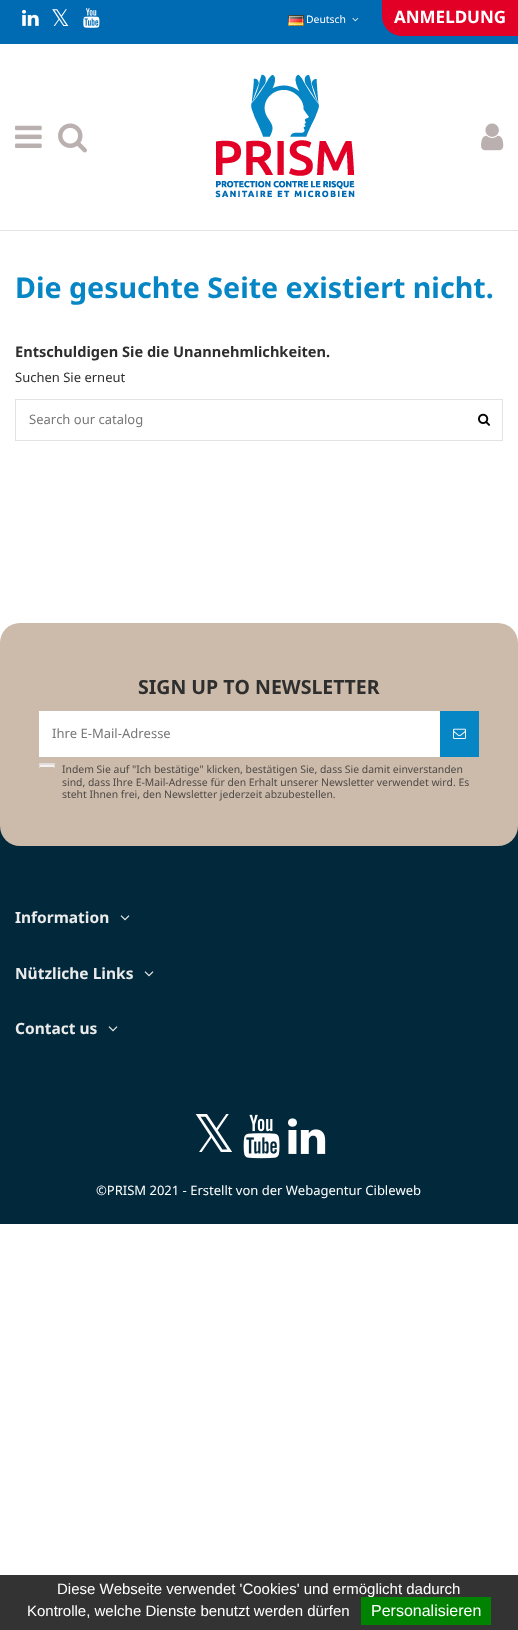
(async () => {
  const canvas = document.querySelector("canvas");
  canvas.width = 518;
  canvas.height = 1630;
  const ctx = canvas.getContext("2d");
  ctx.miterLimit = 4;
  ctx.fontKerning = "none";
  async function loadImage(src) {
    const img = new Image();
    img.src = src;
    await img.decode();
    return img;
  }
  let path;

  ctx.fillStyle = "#ffffff";
  ctx.fillRect(0, 0, 518, 1630);
  ctx.fillStyle = "#006ab3";
  ctx.fillRect(0, 0, 518, 44);
  ctx.drawImage(await loadImage("img/1.png"), 22, 9, 17, 17);
  ctx.drawImage(await loadImage("img/2.png"), 83, 8, 17, 20);
  ctx.drawImage(await loadImage("img/3.png"), 288, 15, 16, 11);
  ctx.drawImage(await loadImage("img/4.png"), 352, 17, 7, 5);
  ctx.fillStyle = "#e20026";
  path = new Path2D("M382-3H518V36H402C391 36 382 27 382 16Z");
  ctx.fill(path);
  ctx.fillStyle = "#e3e3e3";
  ctx.fillRect(0, 230, 518, 1);
  ctx.drawImage(await loadImage("img/5.png"), 15, 125, 27, 23);
  ctx.drawImage(await loadImage("img/6.png"), 58, 123, 29, 30);
  ctx.drawImage(await loadImage("img/7.png"), 215, 74, 140, 124);
  ctx.drawImage(await loadImage("img/8.png"), 481, 123, 23, 28);
  ctx.strokeStyle = "#e3e3e3";
  ctx.strokeRect(15.5, 399.5, 487, 41);
  ctx.drawImage(await loadImage("img/9.png"), 478, 413, 12, 13);
  ctx.fillStyle = "#02283b";
  ctx.fillRect(0, 992, 518, 232);
  path = new Path2D("M127 772H391C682 772 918 812 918 861V906C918 955 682 995 391 995H127C-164 995-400 955-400 906V861C-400 812-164 772 127 772Z");
  ctx.fill(path);
  ctx.fillStyle = "#ccbaaa";
  ctx.beginPath();
  ctx.roundRect(0, 623, 518, 223, 20);
  ctx.fill();
  ctx.fillStyle = "#ffffff";
  ctx.fillRect(39, 711, 401, 46);
  ctx.fillStyle = "#0786c5";
  ctx.fillRect(440, 711, 39, 46);
  ctx.drawImage(await loadImage("img/10.png"), 453, 728, 13, 11);
  ctx.fillStyle = "#f5f1ee";
  ctx.fillRect(40, 765, 14, 3);
  ctx.fillStyle = "#e3dfdc";
  ctx.fillRect(40, 764, 14, 1);
  ctx.strokeStyle = "#dedbd8";
  ctx.strokeRect(39.5, 763.5, 15, 15);
  ctx.fillStyle = "#ccbaaa";
  ctx.beginPath();
  ctx.roundRect(39.5, 767.5, 15, 15, 1.5);
  ctx.fill();
  ctx.strokeStyle = "#ccbaaa";
  ctx.stroke();
  ctx.drawImage(await loadImage("img/11.png"), 120, 915, 10, 6);
  ctx.drawImage(await loadImage("img/11.png"), 144, 971, 10, 6);
  ctx.drawImage(await loadImage("img/11.png"), 108, 1026, 10, 6);
  ctx.drawImage(await loadImage("img/12.png"), 243, 1114, 37, 45);
  ctx.drawImage(await loadImage("img/13.png"), 288, 1118, 38, 36);
  ctx.fillStyle = "#333333";
  ctx.fillRect(0, 1575, 518, 55);
  ctx.font = "23px DejaVu Sans";
  ctx.fillStyle = "#ffffff";
  ctx.fillText("𝕏", 51, 26);
  ctx.font = "10.4px Noto Sans";
  ctx.fillText("Deutsch", 306, 23);
  ctx.font = "bold 17px Noto Sans";
  ctx.fillText("ANMELDUNG", 394, 23);
  ctx.font = "bold 28.6px Noto Sans";
  ctx.fillStyle = "#0786c5";
  ctx.fillText("Die gesuchte Seite existiert nicht.", 15, 298);
  ctx.font = "bold 14.6px Noto Sans";
  ctx.fillStyle = "#2e2e2e";
  ctx.fillText("Entschuldigen Sie die Unannehmlichkeiten.", 15, 357);
  ctx.font = "13px Noto Sans";
  ctx.fillText("Suchen Sie erneut", 15, 382);
  ctx.fillStyle = "#777777";
  ctx.fillText("Search our catalog", 29, 424);
  ctx.font = "bold 19.5px Noto Sans";
  ctx.fillStyle = "#2e2e2e";
  ctx.fillText("SIGN UP TO NEWSLETTER", 138, 694);
  ctx.font = "13px Noto Sans";
  ctx.fillStyle = "#777777";
  ctx.fillText("Ihre E-Mail-Adresse", 52, 738);
  ctx.font = "10.4px Noto Sans";
  ctx.fillStyle = "#4e4a47";
  for (const [text, x, y] of [
    ["Indem Sie auf \"Ich bestätige\" klicken, bestätigen Sie, dass Sie damit einverstanden", 62, 773],
    ["sind, dass Ihre E-Mail-Adresse für den Erhalt unserer Newsletter verwendet wird. Es", 62, 786],
    ["steht Ihnen frei, den Newsletter jederzeit abzubestellen.", 62, 798],
  ]) {
    ctx.fillText(text, x, y);
  }
  ctx.font = "bold 15.5px Noto Sans";
  ctx.fillStyle = "#ebebeb";
  for (const [text, x, y] of [
    ["Information", 15, 923],
    ["Nützliche Links", 15, 979],
    ["Contact us", 15, 1034],
  ]) {
    ctx.fillText(text, x, y);
  }
  ctx.font = "52px DejaVu Sans";
  ctx.fillStyle = "#ffffff";
  ctx.fillText("𝕏", 193, 1152);
  ctx.font = "13px Noto Sans";
  ctx.fillText("©PRISM 2021 - Erstellt von der Webagentur Cibleweb", 96, 1195);
  ctx.font = "15px Liberation Sans";
  ctx.fillText("Diese Webseite verwendet 'Cookies' und ermöglicht dadurch", 57, 1594);
  ctx.fillText("Kontrolle, welche Dienste benutzt werden dürfen", 27, 1616);
  ctx.fillStyle = "#008300";
  ctx.fillRect(361, 1597, 130, 28);
  ctx.font = "16px Liberation Sans";
  ctx.fillStyle = "#ffffff";
  ctx.fillText("Personalisieren", 371, 1616);
})();
